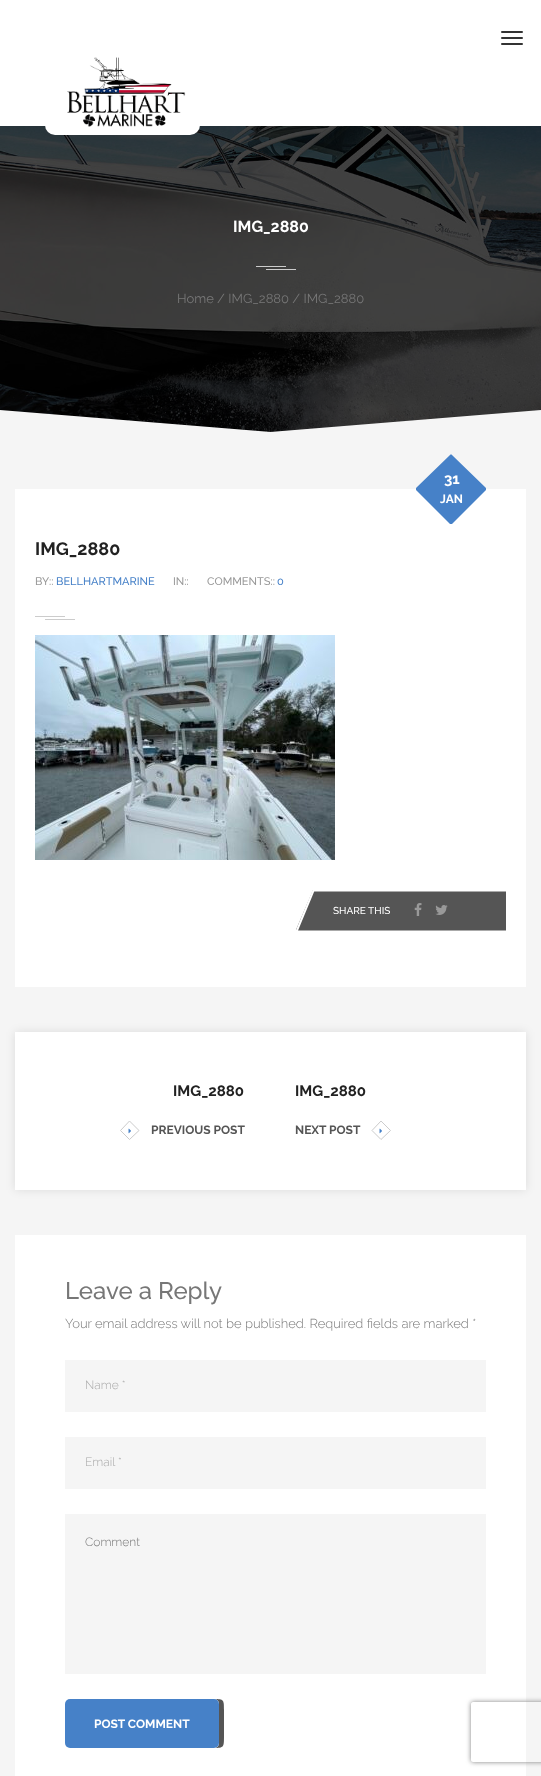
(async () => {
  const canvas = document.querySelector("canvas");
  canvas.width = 541;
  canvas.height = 1776;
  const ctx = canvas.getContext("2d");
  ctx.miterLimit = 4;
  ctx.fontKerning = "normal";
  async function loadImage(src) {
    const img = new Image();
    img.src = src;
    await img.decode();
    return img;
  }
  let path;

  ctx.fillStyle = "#f5f5f5";
  ctx.fillRect(0, 0, 541, 1776);
  ctx.fillStyle = "#ffffff";
  ctx.fillRect(0, 0, 541, 126);
  ctx.fillStyle = "#333333";
  ctx.beginPath();
  ctx.roundRect(501, 31, 11, 2, [1, 0, 0, 1]);
  ctx.fill();
  ctx.beginPath();
  ctx.roundRect(512, 31, 11, 2, [0, 1, 1, 0]);
  ctx.fill();
  ctx.beginPath();
  ctx.roundRect(501, 37, 11, 2, [1, 0, 0, 1]);
  ctx.fill();
  ctx.beginPath();
  ctx.roundRect(512, 37, 11, 2, [0, 1, 1, 0]);
  ctx.fill();
  ctx.beginPath();
  ctx.roundRect(501, 43, 11, 2, [1, 0, 0, 1]);
  ctx.fill();
  ctx.beginPath();
  ctx.roundRect(512, 43, 11, 2, [0, 1, 1, 0]);
  ctx.fill();
  ctx.drawImage(await loadImage("img/2.png"), 0, 126, 541, 306);
  ctx.fillStyle = "#ffffff";
  ctx.beginPath();
  ctx.roundRect(45, 50, 155, 85, 10);
  ctx.fill();
  ctx.drawImage(await loadImage("img/1.png"), 67, 57, 119, 70);
  ctx.fillStyle = "#cccccc";
  ctx.fillRect(256, 266, 30, 1);
  ctx.fillRect(266, 269, 30, 1);
  ctx.save();
  ctx.beginPath();
  ctx.rect(0, 0, 541, 448);
  ctx.clip();
  ctx.fillStyle = "#f5f5f5";
  path = new Path2D("M0 410L271 432V475L0 454Z");
  ctx.fill(path);
  path = new Path2D("M270 432L541 410V454L270 475Z");
  ctx.fill(path);
  ctx.restore();
  ctx.fillStyle = "#ffffff";
  ctx.fillRect(15, 489, 511, 498);
  ctx.fillStyle = "#4681c8";
  path = new Path2D("M452 455L486 488C486 489 486 489 486 490L452 524C451 524 451 524 450 524L416 490C416 489 416 489 416 488L450 455C451 454 451 454 452 455Z");
  ctx.fill(path);
  ctx.fillStyle = "#cccccc";
  ctx.fillRect(35, 616, 30, 1);
  ctx.fillRect(45, 619, 30, 1);
  ctx.drawImage(await loadImage("img/3.png"), 35, 635, 300, 225);
  ctx.save();
  ctx.beginPath();
  ctx.rect(296, 890, 210, 42);
  ctx.clip();
  ctx.fillStyle = "#555555";
  path = new Path2D("M313 890H528L510 932H295Z");
  ctx.fill(path);
  path = new Path2D("M313.5 890.5H526.5L509.5 931.5H296.5Z");
  ctx.strokeStyle = "#ffffff";
  ctx.lineWidth = 2;
  ctx.stroke(path);
  ctx.restore();
  ctx.drawImage(await loadImage("img/4.png"), 414, 903, 8, 13);
  ctx.drawImage(await loadImage("img/5.png"), 435, 905, 13, 10);
  ctx.fillStyle = "rgba(0, 0, 0, 0.1)";
  ctx.filter = "blur(5px)";
  ctx.beginPath();
  ctx.rect(15, 1032, 511, 158);
  ctx.fill();
  ctx.filter = "none";
  ctx.fillStyle = "#ffffff";
  ctx.fillRect(15, 1032, 511, 158);
  path = new Path2D("M129.5 1121L139 1130.5L129.5 1139.5L120.5 1130.5Z");
  ctx.strokeStyle = "#cccccc";
  ctx.stroke(path);
  ctx.drawImage(await loadImage("img/6.png"), 128, 1128, 3, 6);
  path = new Path2D("M381 1121L390.5 1130.5L381 1139.5L372 1130.5Z");
  ctx.stroke(path);
  ctx.drawImage(await loadImage("img/6.png"), 379, 1128, 3, 6);
  for (const [x, y, w, h, color] of [
    [15, 1235, 511, 541, "#ffffff"],
    [65, 1360, 421, 52, "#f5f5f5"],
    [65, 1437, 421, 52, "#f5f5f5"],
    [65, 1514, 421, 160, "#f5f5f5"],
  ]) {
    ctx.fillStyle = color;
    ctx.fillRect(x, y, w, h);
  }
  ctx.fillStyle = "#555555";
  path = new Path2D("M214 1748C224 1748 224 1747 224 1736V1710C224 1700 224 1699 214 1699C217 1699 219 1701 219 1704V1743C219 1746 217 1748 214 1748Z");
  ctx.fill(path);
  ctx.fillStyle = "#4681c8";
  ctx.beginPath();
  ctx.roundRect(65, 1699, 154, 49, 5);
  ctx.fill();
  ctx.save();
  path = new Path2D("M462 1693H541V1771H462ZM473 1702H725C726 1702 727 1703 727 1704V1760C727 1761 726 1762 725 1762H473C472 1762 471 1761 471 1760V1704C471 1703 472 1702 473 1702Z");
  ctx.clip(path, "evenodd");
  ctx.fillStyle = "#808080";
  ctx.filter = "blur(2.5px)";
  ctx.beginPath();
  ctx.roundRect(471, 1702, 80, 60, 2);
  ctx.fill();
  ctx.filter = "none";
  ctx.restore();
  ctx.font = "bold 16px Raleway";
  ctx.fillStyle = "#ffffff";
  ctx.fillText("IMG_2880", 233, 232);
  ctx.font = "13px Raleway";
  ctx.fillStyle = "#777777";
  ctx.fillText("Home / IMG_2880 / IMG_2880", 177, 303);
  ctx.font = "bold 15px Raleway";
  ctx.fillStyle = "#ffffff";
  ctx.fillText("31", 444, 484);
  ctx.font = "bold 12px Raleway";
  ctx.fillText("JAN", 440, 503);
  ctx.font = "bold 18px Raleway";
  ctx.fillStyle = "#222222";
  ctx.fillText("IMG_2880", 35, 555);
  ctx.font = "500 11px Raleway";
  ctx.fillStyle = "#999999";
  ctx.fillText("BY::", 35, 585);
  ctx.fillStyle = "#4681c8";
  ctx.fillText("BELLHARTMARINE", 56, 585);
  ctx.fillStyle = "#999999";
  ctx.fillText("IN::", 173, 585);
  ctx.fillText("COMMENTS::", 207, 585);
  ctx.fillStyle = "#4681c8";
  ctx.fillText("0", 277, 585);
  ctx.font = "500 10px Raleway";
  ctx.fillStyle = "#ffffff";
  ctx.fillText("SHARE THIS", 333, 914);
  ctx.font = "bold 15px Raleway";
  ctx.fillStyle = "#222222";
  ctx.fillText("IMG_2880", 173, 1096);
  ctx.font = "bold 12px Raleway";
  ctx.fillStyle = "#555555";
  ctx.fillText("PREVIOUS POST", 151, 1134);
  ctx.font = "bold 15px Raleway";
  ctx.fillStyle = "#222222";
  ctx.fillText("IMG_2880", 295, 1096);
  ctx.font = "bold 12px Raleway";
  ctx.fillStyle = "#555555";
  ctx.fillText("NEXT POST", 295, 1134);
  ctx.font = "500 24px Raleway";
  ctx.fillStyle = "#777777";
  ctx.fillText("Leave a Reply", 65, 1299);
  ctx.font = "300 13px Raleway";
  ctx.fillText("Your email address will not be published. Required fields are marked *", 65, 1328);
  ctx.font = "300 12px Raleway";
  ctx.fillStyle = "#aaaaaa";
  ctx.fillText("Name *", 85, 1389);
  ctx.fillText("Email *", 85, 1466);
  ctx.fillStyle = "#777777";
  ctx.fillText("Comment", 85, 1546);
  ctx.font = "bold 12px Raleway";
  ctx.fillStyle = "#ffffff";
  ctx.fillText("POST COMMENT", 94, 1728);
})();
